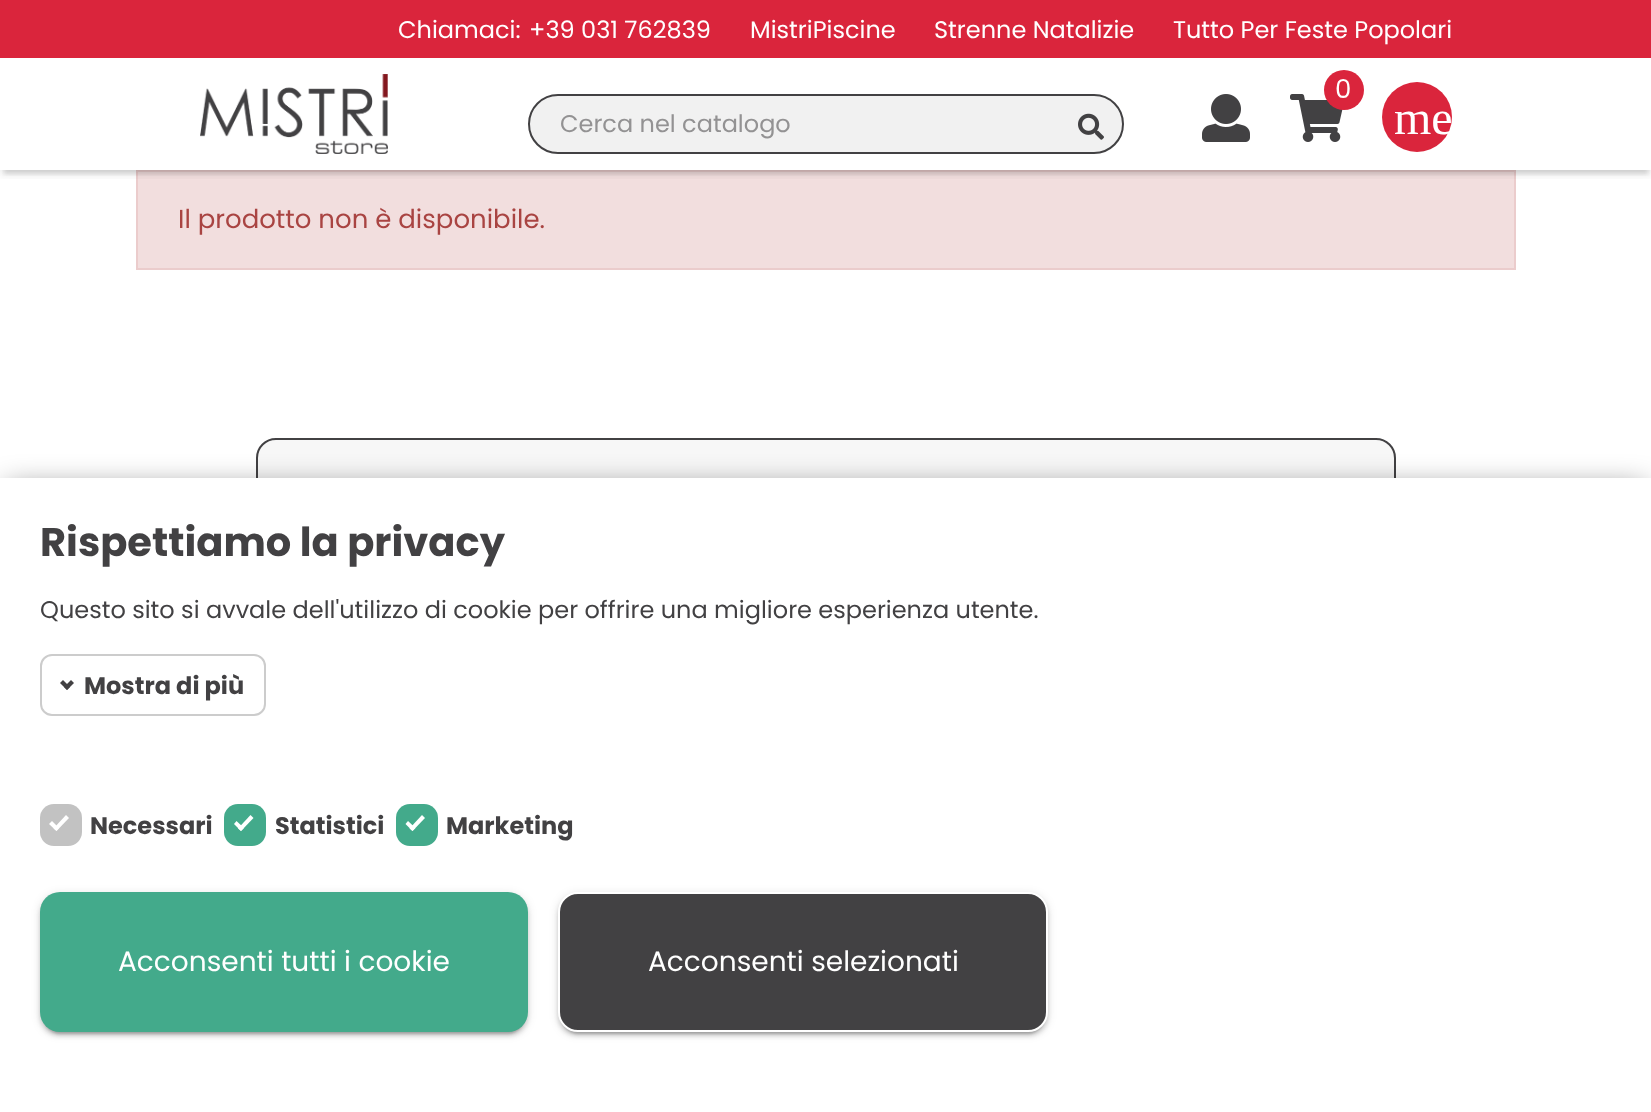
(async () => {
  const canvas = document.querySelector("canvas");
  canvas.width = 1651;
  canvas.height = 1112;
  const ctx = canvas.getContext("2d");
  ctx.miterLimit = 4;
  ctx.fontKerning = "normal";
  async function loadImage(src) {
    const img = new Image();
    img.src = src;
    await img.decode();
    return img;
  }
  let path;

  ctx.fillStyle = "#ffffff";
  ctx.fillRect(0, 0, 1651, 1112);
  ctx.fillStyle = "#f2dede";
  ctx.beginPath();
  ctx.rect(137, 171, 1378, 98);
  ctx.fill();
  ctx.strokeStyle = "#ebcccc";
  ctx.lineWidth = 2;
  ctx.stroke();
  ctx.save();
  ctx.beginPath();
  ctx.rect(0, 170, 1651, 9);
  ctx.clip();
  ctx.fillStyle = "rgba(0, 0, 0, 0.11)";
  ctx.filter = "blur(5px)";
  ctx.beginPath();
  ctx.rect(0, 4, 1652, 170);
  ctx.fill();
  ctx.filter = "none";
  ctx.restore();
  ctx.fillStyle = "#da253c";
  ctx.fillRect(0, 0, 1651, 58);
  ctx.save();
  ctx.beginPath();
  ctx.rect(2, 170, 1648, 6);
  ctx.clip();
  ctx.fillStyle = "rgba(0, 0, 0, 0.1)";
  ctx.filter = "blur(2px)";
  ctx.beginPath();
  ctx.rect(4, 70, 1644, 104);
  ctx.fill();
  ctx.filter = "none";
  ctx.restore();
  ctx.drawImage(await loadImage("img/1.png"), 200, 74, 188, 80);
  ctx.fillStyle = "#f1f1f1";
  ctx.beginPath();
  ctx.roundRect(529, 95, 594, 58, 29);
  ctx.fill();
  ctx.strokeStyle = "#424143";
  ctx.stroke();
  ctx.drawImage(await loadImage("img/2.png"), 1078, 113, 26, 27);
  ctx.drawImage(await loadImage("img/3.png"), 1290, 94, 53, 48);
  ctx.fillStyle = "#da253c";
  ctx.beginPath();
  ctx.arc(1344, 90, 20, 0, Math.PI * 2);
  ctx.fill();
  ctx.drawImage(await loadImage("img/4.png"), 1202, 94, 48, 48);
  ctx.beginPath();
  ctx.arc(1417, 117, 35, 0, Math.PI * 2);
  ctx.fill();
  ctx.fillStyle = "#f7f7f7";
  ctx.beginPath();
  ctx.roundRect(257, 439, 1138, 326, 19);
  ctx.fill();
  ctx.stroke();
  ctx.fillStyle = "rgba(0, 0, 0, 0.5)";
  ctx.filter = "blur(15px)";
  ctx.beginPath();
  ctx.rect(6, 488, 1640, 622);
  ctx.fill();
  ctx.filter = "none";
  ctx.fillStyle = "#ffffff";
  ctx.fillRect(0, 478, 1651, 634);
  ctx.beginPath();
  ctx.roundRect(41, 655, 224, 60, 11);
  ctx.strokeStyle = "#cccccc";
  ctx.stroke();
  ctx.fillStyle = "#424143";
  path = new Path2D("M74 683L67 690L64 687L71 680Z");
  ctx.fill(path);
  path = new Path2D("M70 687L67 690L60 683L63 680Z");
  ctx.fill(path);
  ctx.fillStyle = "#c2c2c2";
  ctx.beginPath();
  ctx.roundRect(40, 804, 42, 42, 14);
  ctx.fill();
  ctx.fillStyle = "#ffffff";
  path = new Path2D("M66 815L69 818L56.5 831L53.5 828.5Z");
  ctx.fill(path);
  path = new Path2D("M52 821L59 828L56.5 831L49 824Z");
  ctx.fill(path);
  ctx.fillStyle = "#43aa8b";
  ctx.beginPath();
  ctx.roundRect(224, 804, 42, 42, 14);
  ctx.fill();
  ctx.fillStyle = "#ffffff";
  path = new Path2D("M250.5 815L253.5 818L241 831L238 828.5Z");
  ctx.fill(path);
  path = new Path2D("M236.5 821L244 828L241 831L234 824Z");
  ctx.fill(path);
  ctx.fillStyle = "#43aa8b";
  ctx.beginPath();
  ctx.roundRect(396, 804, 42, 42, 14);
  ctx.fill();
  ctx.fillStyle = "#ffffff";
  path = new Path2D("M422 815L425 818L412.5 831L409.5 828.5Z");
  ctx.fill(path);
  path = new Path2D("M408 821L415.5 828L412.5 831L405.5 824Z");
  ctx.fill(path);
  ctx.fillStyle = "rgba(0, 0, 0, 0.12)";
  ctx.filter = "blur(5px)";
  ctx.beginPath();
  ctx.roundRect(40, 894, 488, 140, 20);
  ctx.fill();
  ctx.filter = "none";
  ctx.fillStyle = "rgba(0, 0, 0, 0.14)";
  ctx.filter = "blur(2px)";
  ctx.beginPath();
  ctx.roundRect(40, 896, 488, 140, 20);
  ctx.fill();
  ctx.filter = "none";
  ctx.fillStyle = "rgba(0, 0, 0, 0.2)";
  ctx.filter = "blur(1px)";
  ctx.beginPath();
  ctx.roundRect(44, 902, 480, 132, 16);
  ctx.fill();
  ctx.filter = "none";
  ctx.fillStyle = "#43aa8b";
  ctx.beginPath();
  ctx.roundRect(40, 892, 488, 140, 20);
  ctx.fill();
  ctx.fillStyle = "rgba(0, 0, 0, 0.12)";
  ctx.filter = "blur(5px)";
  ctx.beginPath();
  ctx.roundRect(558, 894, 490, 140, 20);
  ctx.fill();
  ctx.filter = "none";
  ctx.fillStyle = "rgba(0, 0, 0, 0.14)";
  ctx.filter = "blur(2px)";
  ctx.beginPath();
  ctx.roundRect(558, 896, 490, 140, 20);
  ctx.fill();
  ctx.filter = "none";
  ctx.fillStyle = "rgba(0, 0, 0, 0.2)";
  ctx.filter = "blur(1px)";
  ctx.beginPath();
  ctx.roundRect(562, 902, 482, 132, 16);
  ctx.fill();
  ctx.filter = "none";
  ctx.fillStyle = "#424143";
  ctx.beginPath();
  ctx.roundRect(559, 893, 488, 138, 19);
  ctx.fill();
  ctx.strokeStyle = "#ffffff";
  ctx.stroke();
  ctx.font = "24px Poppins";
  ctx.fillStyle = "#ffffff";
  for (const [text, x, y] of [
    ["Chiamaci:", 398, 38],
    ["+39 031 762839", 529, 38],
    ["MistriPiscine", 750, 38],
    ["Strenne Natalizie", 934, 38],
    ["Tutto Per Feste Popolari", 1173, 38],
  ]) {
    ctx.fillText(text, x, y);
  }
  ctx.fillStyle = "#939293";
  ctx.fillText("Cerca nel catalogo", 560, 132);
  ctx.font = "26px Poppins";
  ctx.fillStyle = "#ffffff";
  ctx.fillText("0", 1335, 98);
  ctx.font = "48px Liberation Serif";
  ctx.fillText("me", 1394, 134);
  ctx.font = "26px Poppins";
  ctx.fillStyle = "#a94442";
  ctx.fillText("Il prodotto non è disponibile.", 178, 228);
  ctx.font = "bold 40px Poppins";
  ctx.fillStyle = "#424143";
  ctx.fillText("Rispettiamo la privacy", 40, 556);
  ctx.font = "24px Poppins";
  ctx.fillText("Questo sito si avvale dell'utilizzo di cookie per offrire una migliore esperienza utente.", 40, 618);
  ctx.font = "bold 24px Poppins";
  for (const [text, x, y] of [
    ["Mostra di più", 84, 694],
    ["Necessari", 90, 834],
    ["Statistici", 275, 834],
    ["Marketing", 446, 834],
  ]) {
    ctx.fillText(text, x, y);
  }
  ctx.font = "28px Poppins";
  ctx.fillStyle = "#ffffff";
  ctx.fillText("Acconsenti tutti i cookie", 118, 971);
  ctx.fillText("Acconsenti selezionati", 648, 971);
})();
